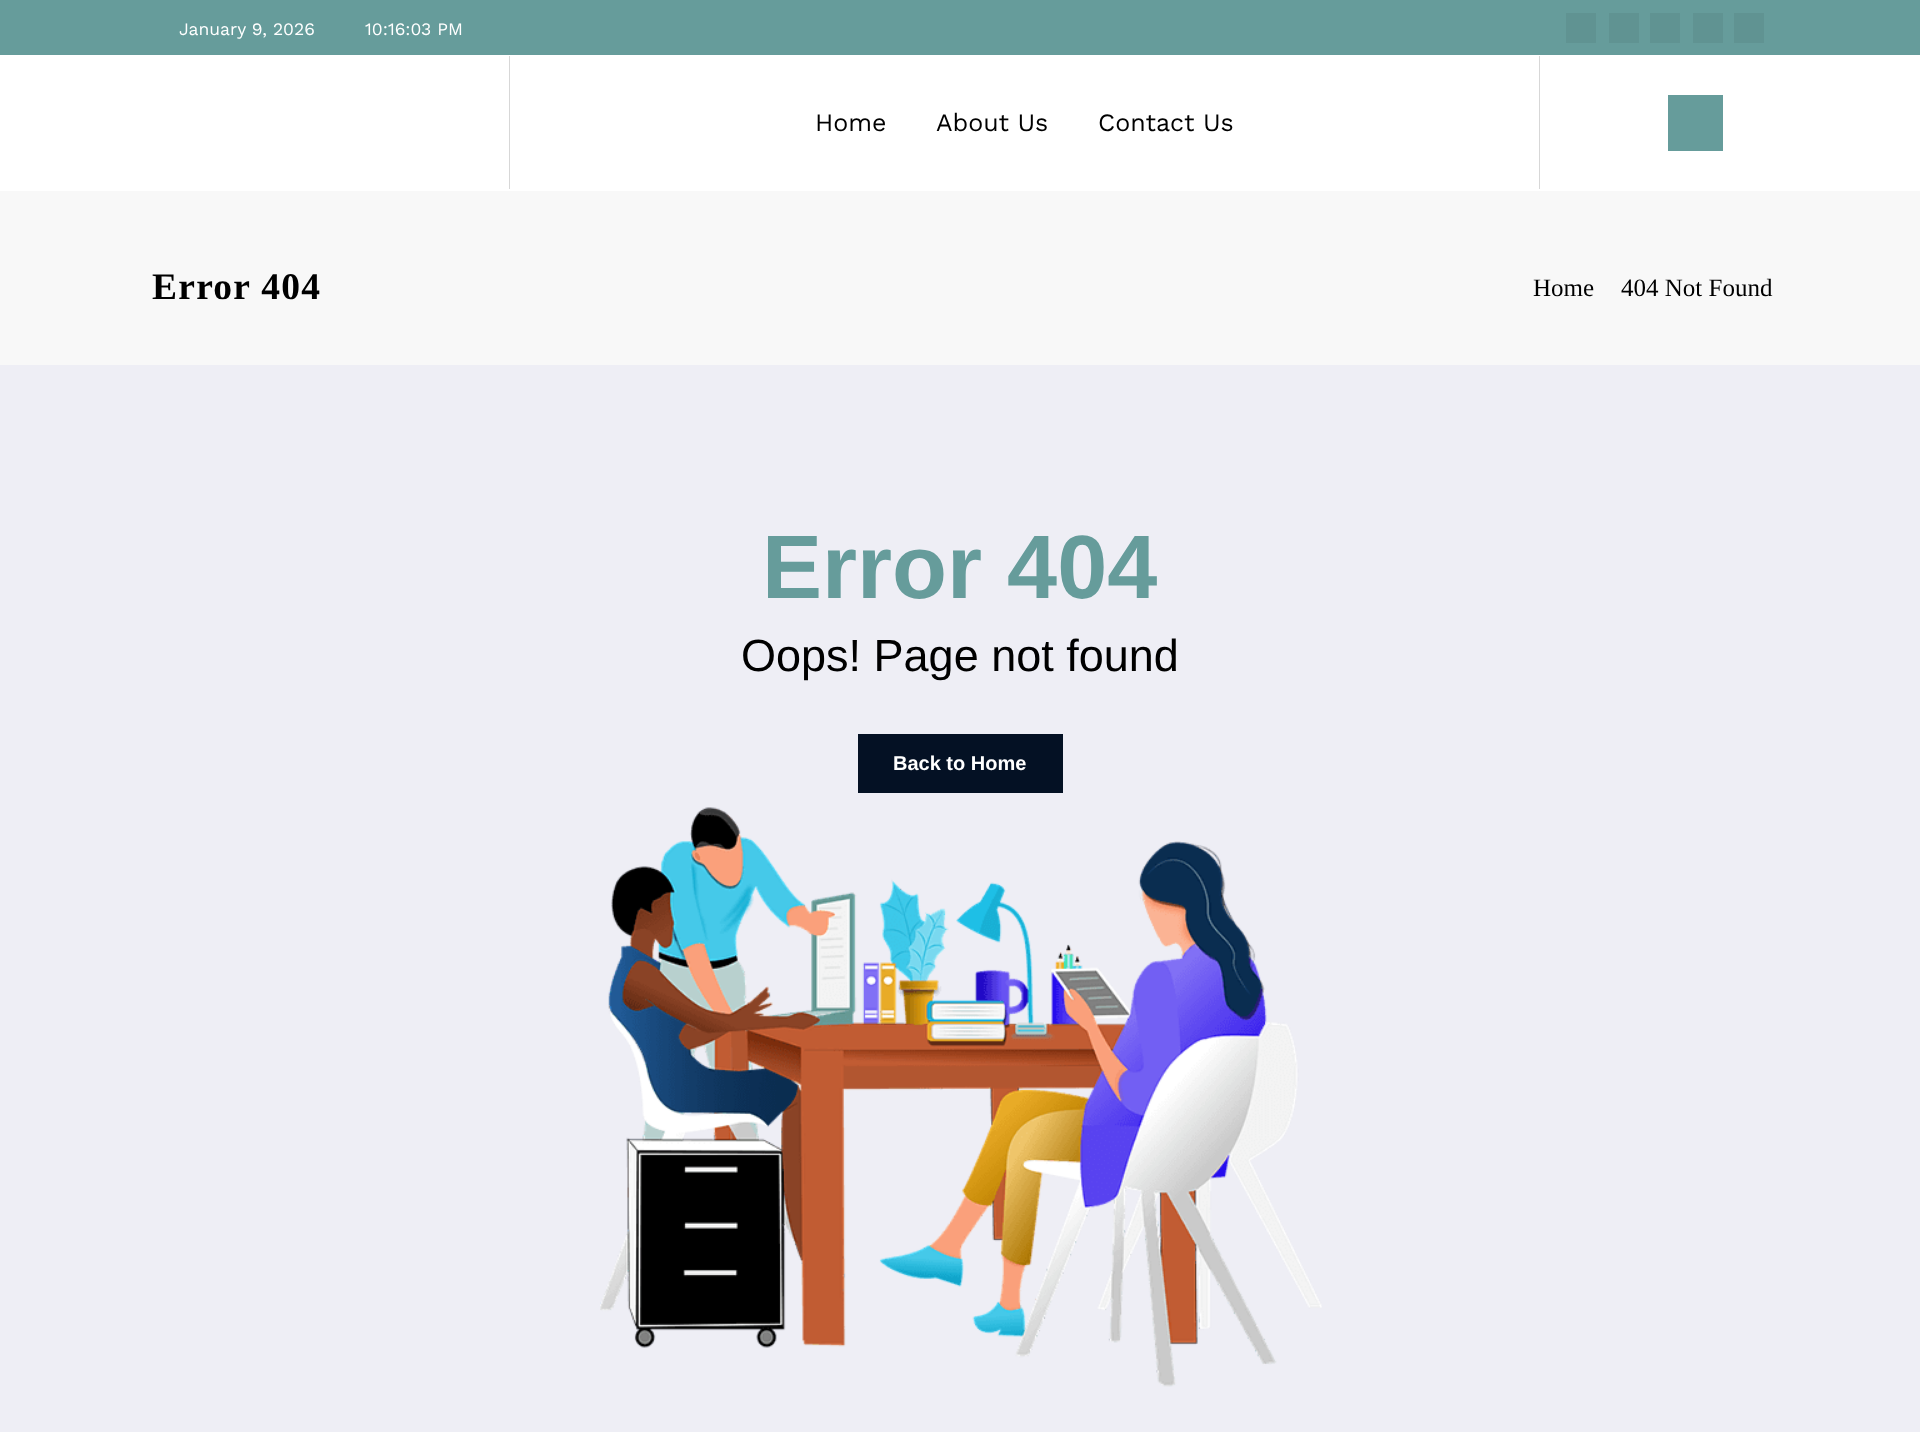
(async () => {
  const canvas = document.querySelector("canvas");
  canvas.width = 1920;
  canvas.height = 1432;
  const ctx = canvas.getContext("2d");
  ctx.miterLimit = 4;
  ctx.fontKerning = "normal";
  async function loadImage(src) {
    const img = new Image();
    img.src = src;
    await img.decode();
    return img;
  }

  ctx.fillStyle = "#eeeef5";
  ctx.fillRect(0, 0, 1920, 1432);
  for (const [x, y, w, h, color] of [
    [0, 0, 1920, 55, "#669c9b"],
    [1566, 13, 30, 30, "#609392"],
    [1609, 13, 30, 30, "#609392"],
    [1650, 13, 30, 30, "#609392"],
    [1693, 13, 30, 30, "#609392"],
    [1734, 13, 30, 30, "#609392"],
    [0, 55, 1920, 136, "#ffffff"],
    [1539, 56, 1, 133, "#d7d7d7"],
    [509, 56, 1, 133, "#d7d7d7"],
    [1668, 95, 55, 56, "#669c9b"],
    [0, 191, 1920, 174, "#f8f8f8"],
    [858, 734, 205, 59, "#041124"],
  ]) {
    ctx.fillStyle = color;
    ctx.fillRect(x, y, w, h);
  }
  ctx.drawImage(await loadImage("img/1.png"), 600, 807, 722, 580);
  ctx.font = "17.5px Work Sans";
  ctx.fillStyle = "#ffffff";
  ctx.fillText("January 9, 2026", 179, 35);
  ctx.fillText("10:16:03 PM", 365, 35);
  ctx.font = "25px Work Sans";
  ctx.fillStyle = "#000000";
  for (const [text, x, y] of [
    ["Home", 815, 131],
    ["About Us", 936, 131],
    ["Contact Us", 1098, 131],
  ]) {
    ctx.fillText(text, x, y);
  }
  ctx.letterSpacing = "1.25px";
  ctx.font = "bold 37.5px Liberation Serif";
  ctx.fillText("Error 404", 152, 299);
  ctx.letterSpacing = "0px";
  ctx.font = "25px Liberation Serif";
  ctx.fillText("Home", 1533, 296);
  ctx.fillText("404 Not Found", 1621, 296);
  ctx.font = "bold 90px Liberation Sans";
  ctx.fillStyle = "#669c9b";
  ctx.fillText("Error 404", 762, 598);
  ctx.font = "45px Liberation Sans";
  ctx.fillStyle = "#000000";
  ctx.fillText("Oops! Page not found", 741, 671);
  ctx.font = "bold 20px Liberation Sans";
  ctx.fillStyle = "#ffffff";
  ctx.fillText("Back to Home", 893, 770);
})();
